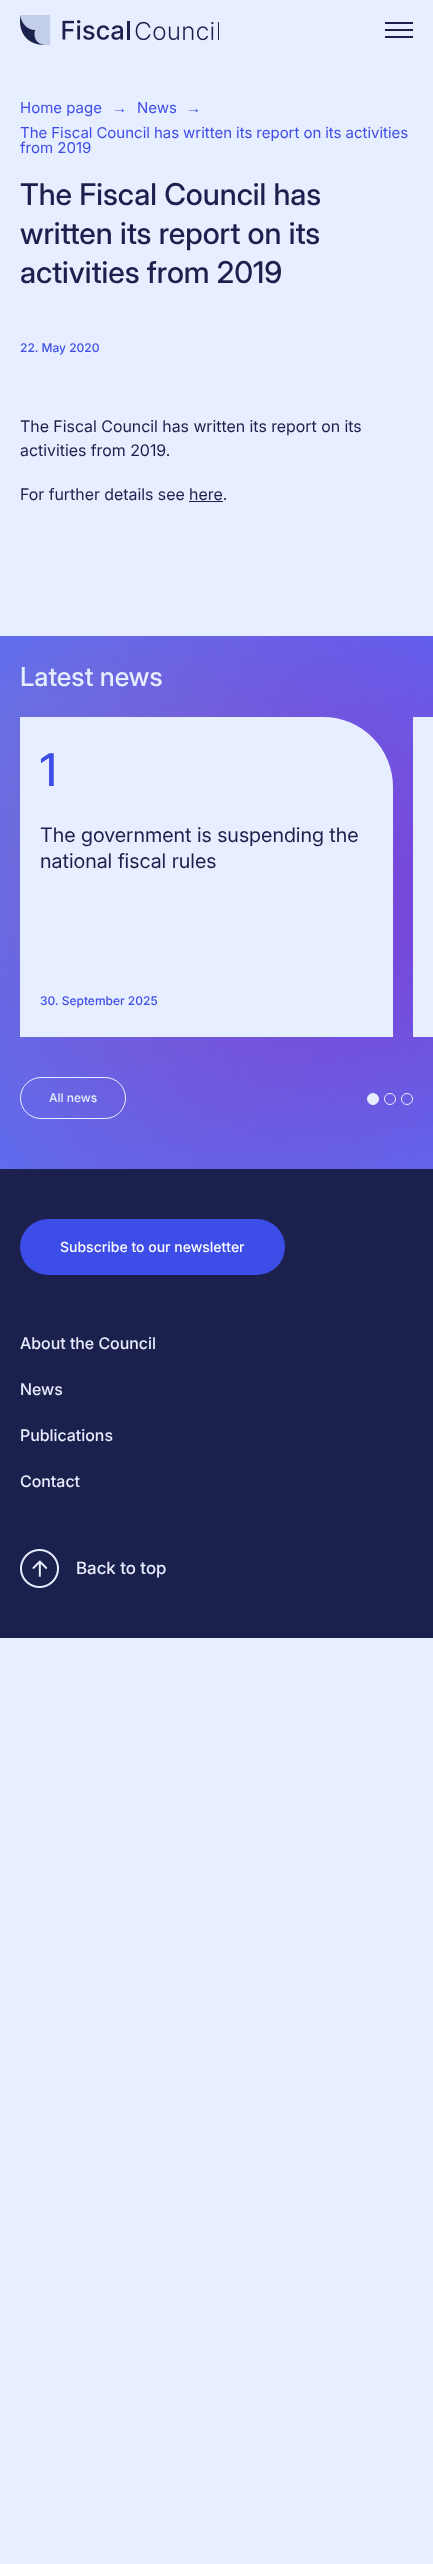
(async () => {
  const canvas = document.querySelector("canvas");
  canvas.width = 433;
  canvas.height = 2564;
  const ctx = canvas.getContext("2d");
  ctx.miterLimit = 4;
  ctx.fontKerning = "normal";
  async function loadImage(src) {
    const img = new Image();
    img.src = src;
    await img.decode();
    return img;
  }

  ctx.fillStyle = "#e7eeff";
  ctx.fillRect(0, 0, 433, 2564);
  ctx.drawImage(await loadImage("img/1.png"), 20, 15, 199, 30);
  for (const [x, y, w, h, color] of [
    [385, 22, 28, 2, "#1c204c"],
    [385, 29, 28, 2, "#1c204c"],
    [385, 36, 28, 2, "#1c204c"],
    [189, 501, 34, 1, "#1c204c"],
  ]) {
    ctx.fillStyle = color;
    ctx.fillRect(x, y, w, h);
  }
  ctx.drawImage(await loadImage("img/2.png"), 0, 636, 433, 533);
  ctx.fillStyle = "#e7eeff";
  ctx.beginPath();
  ctx.roundRect(20, 717, 373, 320, [0, 70, 0, 0]);
  ctx.fill();
  ctx.fillRect(413, 717, 20, 320);
  ctx.beginPath();
  ctx.arc(373, 1099, 5.5, 0, Math.PI * 2);
  ctx.fill();
  ctx.strokeStyle = "#e7eeff";
  ctx.stroke();
  ctx.beginPath();
  ctx.arc(390, 1099, 5.5, 0, Math.PI * 2);
  ctx.stroke();
  ctx.beginPath();
  ctx.arc(407, 1099, 5.5, 0, Math.PI * 2);
  ctx.stroke();
  ctx.beginPath();
  ctx.roundRect(20.5, 1077.5, 105, 41, 20.5);
  ctx.stroke();
  ctx.fillStyle = "#1c204c";
  ctx.fillRect(0, 1169, 433, 469);
  ctx.fillStyle = "#3d4de7";
  ctx.beginPath();
  ctx.roundRect(20, 1219, 265, 56, 28);
  ctx.fill();
  ctx.drawImage(await loadImage("img/3.png"), 20, 1549, 39, 39);
  ctx.font = "15px Inter";
  ctx.fillText("Home page", 20, 113);
  ctx.font = "15px Liberation Sans";
  ctx.fillText("→", 112, 113);
  ctx.font = "15px Inter";
  ctx.fillText("News", 137, 113);
  ctx.font = "15px Liberation Sans";
  ctx.fillText("→", 186, 113);
  ctx.wordSpacing = "-0.25px";
  ctx.font = "15px Inter";
  ctx.fillText("The Fiscal Council has written its report on its activities", 20, 138);
  ctx.wordSpacing = "0px";
  ctx.fillText("from 2019", 20, 153);
  ctx.font = "500 30px Inter";
  ctx.fillStyle = "#1c204c";
  for (const [text, x, y] of [
    ["The Fiscal Council has", 20, 205],
    ["written its report on its", 20, 244],
    ["activities from 2019", 20, 283],
  ]) {
    ctx.fillText(text, x, y);
  }
  ctx.font = "500 12px 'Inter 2'";
  ctx.fillStyle = "#3d4de7";
  ctx.fillText("22. May 2020", 20, 352);
  ctx.font = "16px 'Inter 2'";
  ctx.fillStyle = "#1c204c";
  for (const [text, x, y] of [
    ["The Fiscal Council has written its report on its", 20, 432],
    ["activities from 2019.", 20, 456],
    ["For further details see here.", 20, 500],
  ]) {
    ctx.fillText(text, x, y);
  }
  ctx.font = "500 26px 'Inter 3'";
  ctx.fillStyle = "#e7eeff";
  ctx.fillText("Latest news", 20, 686);
  ctx.font = "500 45px 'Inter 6'";
  ctx.fillStyle = "#3d4de7";
  ctx.fillText("1", 40, 786);
  ctx.font = "20px 'Inter 3'";
  ctx.fillStyle = "#1c204c";
  ctx.fillText("The government is suspending the", 40, 842);
  ctx.fillText("national fiscal rules", 40, 868);
  ctx.font = "500 12px 'Inter 2'";
  ctx.fillStyle = "#3d4de7";
  ctx.fillText("30. September 2025", 40, 1005);
  ctx.fillStyle = "#e7eeff";
  ctx.fillText("All news", 49, 1102);
  ctx.font = "500 14px 'Inter 2'";
  ctx.fillStyle = "#ffffff";
  ctx.fillText("Subscribe to our newsletter", 60, 1252);
  ctx.font = "500 16px 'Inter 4'";
  ctx.fillStyle = "#e7eeff";
  for (const [text, x, y] of [
    ["About the Council", 20, 1349],
    ["News", 20, 1395],
    ["Publications", 20, 1441],
    ["Contact", 20, 1487],
  ]) {
    ctx.fillText(text, x, y);
  }
  ctx.font = "500 17px 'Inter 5'";
  ctx.fillText("Back to top", 76, 1574);
})();
